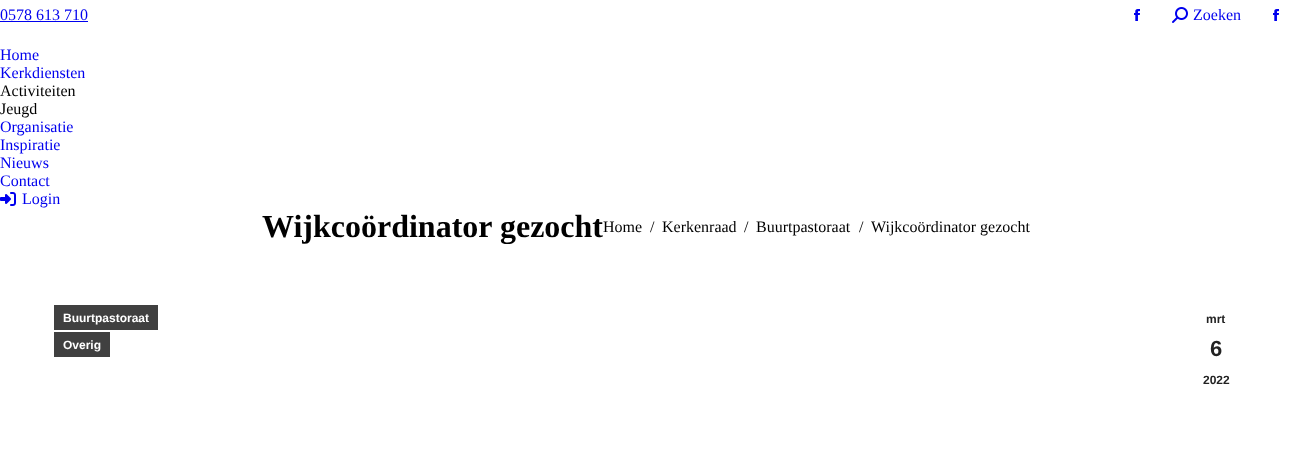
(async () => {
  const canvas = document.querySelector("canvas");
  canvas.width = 1291;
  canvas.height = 467;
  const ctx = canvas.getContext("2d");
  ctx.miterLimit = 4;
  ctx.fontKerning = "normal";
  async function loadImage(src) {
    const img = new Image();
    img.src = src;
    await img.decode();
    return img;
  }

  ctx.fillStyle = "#ffffff";
  ctx.fillRect(0, 0, 1291, 467);
  ctx.fillStyle = "#0000ee";
  ctx.fillRect(0, 21, 88, 1);
  ctx.drawImage(await loadImage("img/1.png"), 1134, 9, 6, 12);
  ctx.drawImage(await loadImage("img/2.png"), 1172, 7, 16, 16);
  ctx.drawImage(await loadImage("img/1.png"), 1273, 9, 6, 12);
  ctx.drawImage(await loadImage("img/3.png"), 0, 192, 16, 14);
  ctx.fillStyle = "#404040";
  ctx.fillRect(54, 305, 104, 25);
  ctx.fillRect(54, 332, 56, 25);
  ctx.font = "16px Liberation Serif";
  ctx.fillStyle = "#0000ee";
  for (const [text, x, y] of [
    ["0578 613 710", 0, 20],
    ["Zoeken", 1193, 20],
    ["Home", 0, 60],
    ["Kerkdiensten", 0, 78],
  ]) {
    ctx.fillText(text, x, y);
  }
  ctx.fillStyle = "#000000";
  ctx.fillText("Activiteiten", 0, 96);
  ctx.fillText("Jeugd", 0, 114);
  ctx.fillStyle = "#0000ee";
  for (const [text, x, y] of [
    ["Organisatie", 0, 132],
    ["Inspiratie", 0, 150],
    ["Nieuws", 0, 168],
    ["Contact", 0, 186],
    ["Login", 22, 204],
  ]) {
    ctx.fillText(text, x, y);
  }
  ctx.font = "bold 32px Liberation Serif";
  ctx.fillStyle = "#000000";
  ctx.fillText("Wijkcoördinator gezocht", 262, 237);
  ctx.font = "16px Liberation Serif";
  for (const [text, x, y] of [
    ["Home", 603, 232],
    ["/", 650, 232],
    ["Kerkenraad", 662, 232],
    ["/", 744, 232],
    ["Buurtpastoraat", 756, 232],
    ["/", 859, 232],
    ["Wijkcoördinator gezocht", 871, 232],
  ]) {
    ctx.fillText(text, x, y);
  }
  ctx.font = "bold 12px Liberation Sans";
  ctx.fillStyle = "#ffffff";
  ctx.fillText("Buurtpastoraat", 63, 322);
  ctx.fillText("Overig", 63, 349);
  ctx.fillStyle = "#222222";
  ctx.fillText("mrt", 1206, 323);
  ctx.font = "bold 22px Liberation Sans";
  ctx.fillText("6", 1210, 356);
  ctx.font = "bold 12px Liberation Sans";
  ctx.fillText("2022", 1203, 384);
})();
